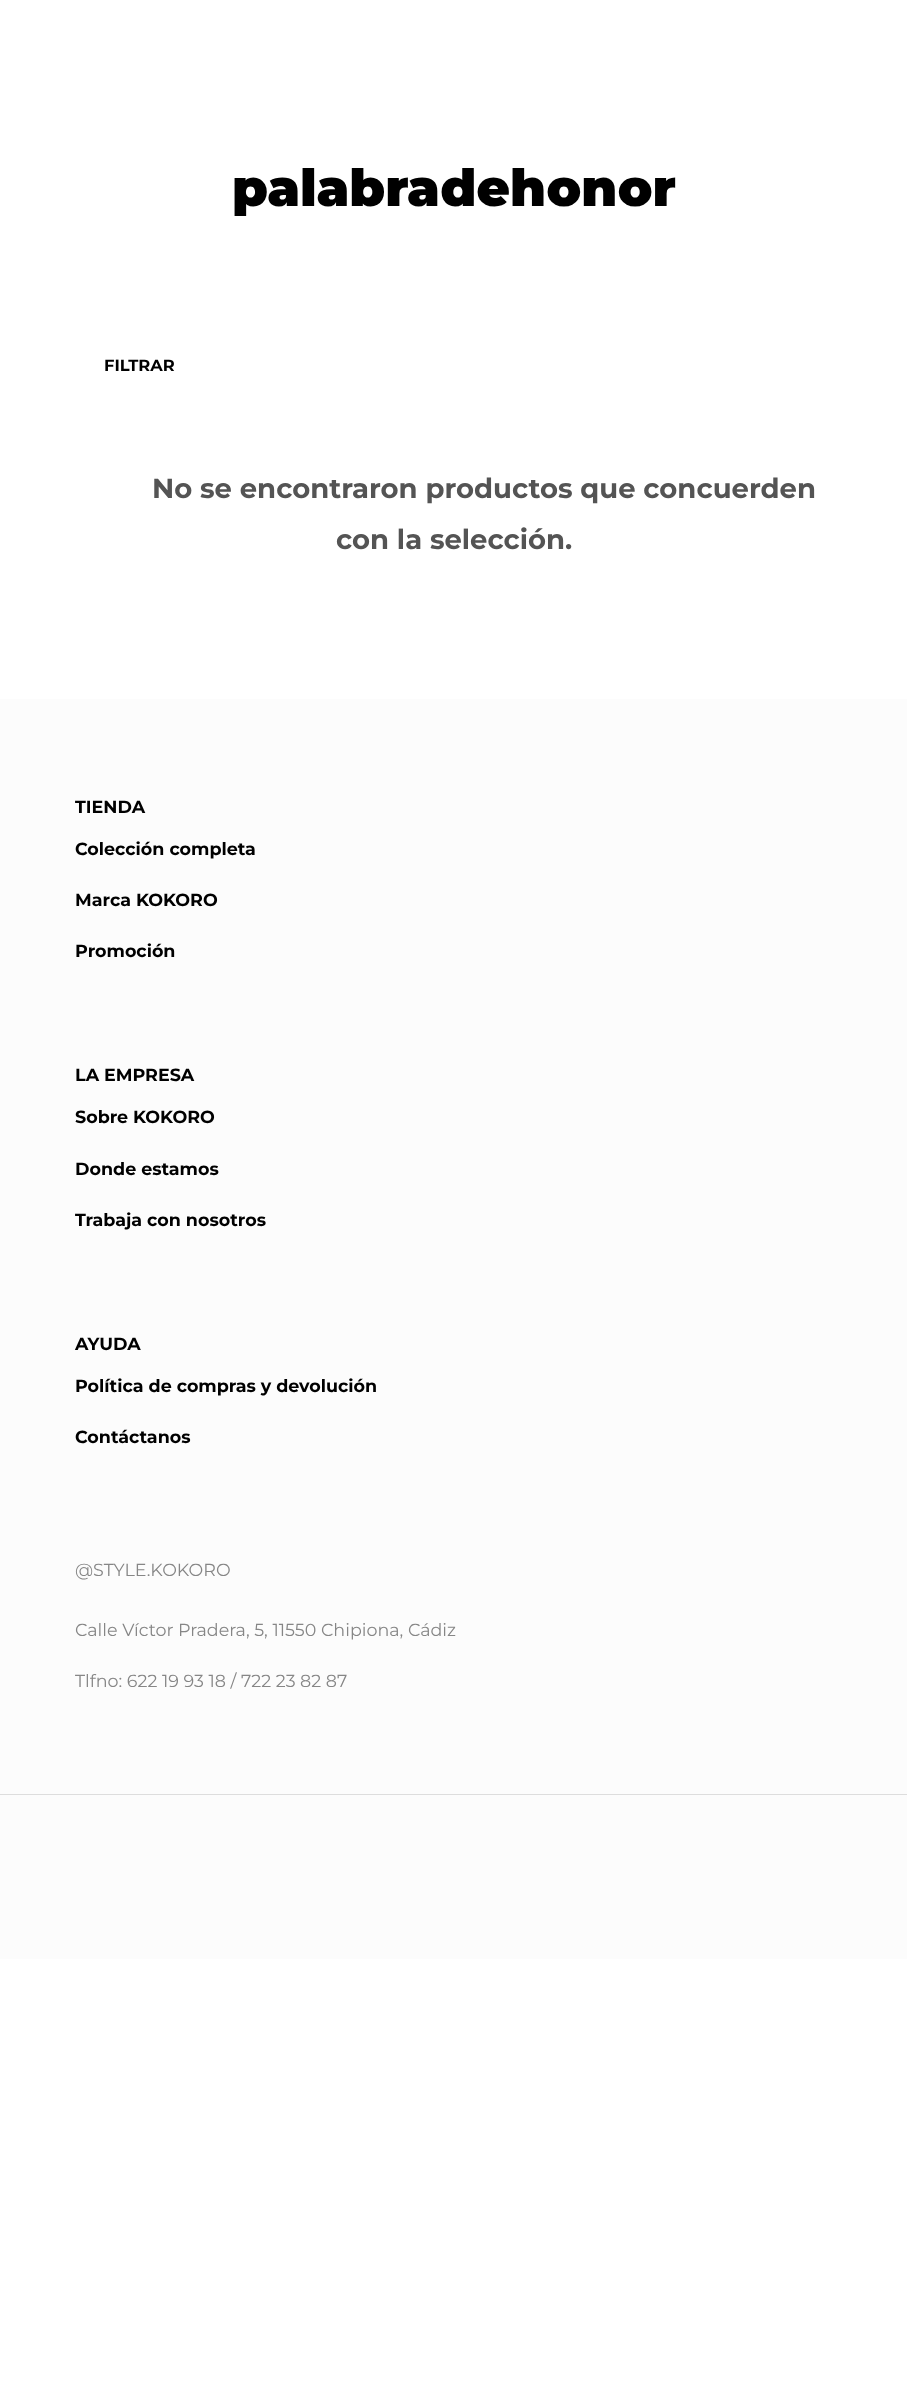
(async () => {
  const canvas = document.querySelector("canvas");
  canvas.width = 907;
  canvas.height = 2394;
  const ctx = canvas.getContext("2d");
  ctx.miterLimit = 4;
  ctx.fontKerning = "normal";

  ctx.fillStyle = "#ffffff";
  ctx.fillRect(0, 0, 907, 2394);
  ctx.fillStyle = "#fcfcfc";
  ctx.fillRect(0, 699, 907, 1260);
  ctx.fillStyle = "#dddddd";
  ctx.fillRect(0, 1794, 907, 1);
  ctx.font = "900 51.25px Montserrat";
  ctx.fillStyle = "#000000";
  ctx.fillText("palabradehonor", 232, 206);
  ctx.font = "bold 16.25px Montserrat";
  ctx.fillText("FILTRAR", 104, 371);
  ctx.font = "bold 27.5px Montserrat";
  ctx.fillStyle = "#545454";
  ctx.fillText("No se encontraron productos que concuerden", 152, 498);
  ctx.fillText("con la selección.", 336, 549);
  ctx.font = "bold 17.5px Montserrat";
  ctx.fillStyle = "#000000";
  for (const [text, x, y] of [
    ["TIENDA", 75, 813],
    ["Colección completa", 75, 855],
    ["Marca KOKORO", 75, 906],
    ["Promoción", 75, 957],
    ["LA EMPRESA", 75, 1081],
    ["Sobre KOKORO", 75, 1123],
    ["Donde estamos", 75, 1175],
    ["Trabaja con nosotros", 75, 1226],
    ["AYUDA", 75, 1350],
    ["Política de compras y devolución", 75, 1392],
    ["Contáctanos", 75, 1443],
  ]) {
    ctx.fillText(text, x, y);
  }
  ctx.font = "17.5px Montserrat";
  ctx.fillStyle = "#868686";
  for (const [text, x, y] of [
    ["@STYLE.KOKORO", 75, 1576],
    ["Calle Víctor Pradera, 5, 11550 Chipiona, Cádiz", 75, 1636],
    ["Tlfno: 622 19 93 18 / 722 23 82 87", 75, 1687],
  ]) {
    ctx.fillText(text, x, y);
  }
})();
